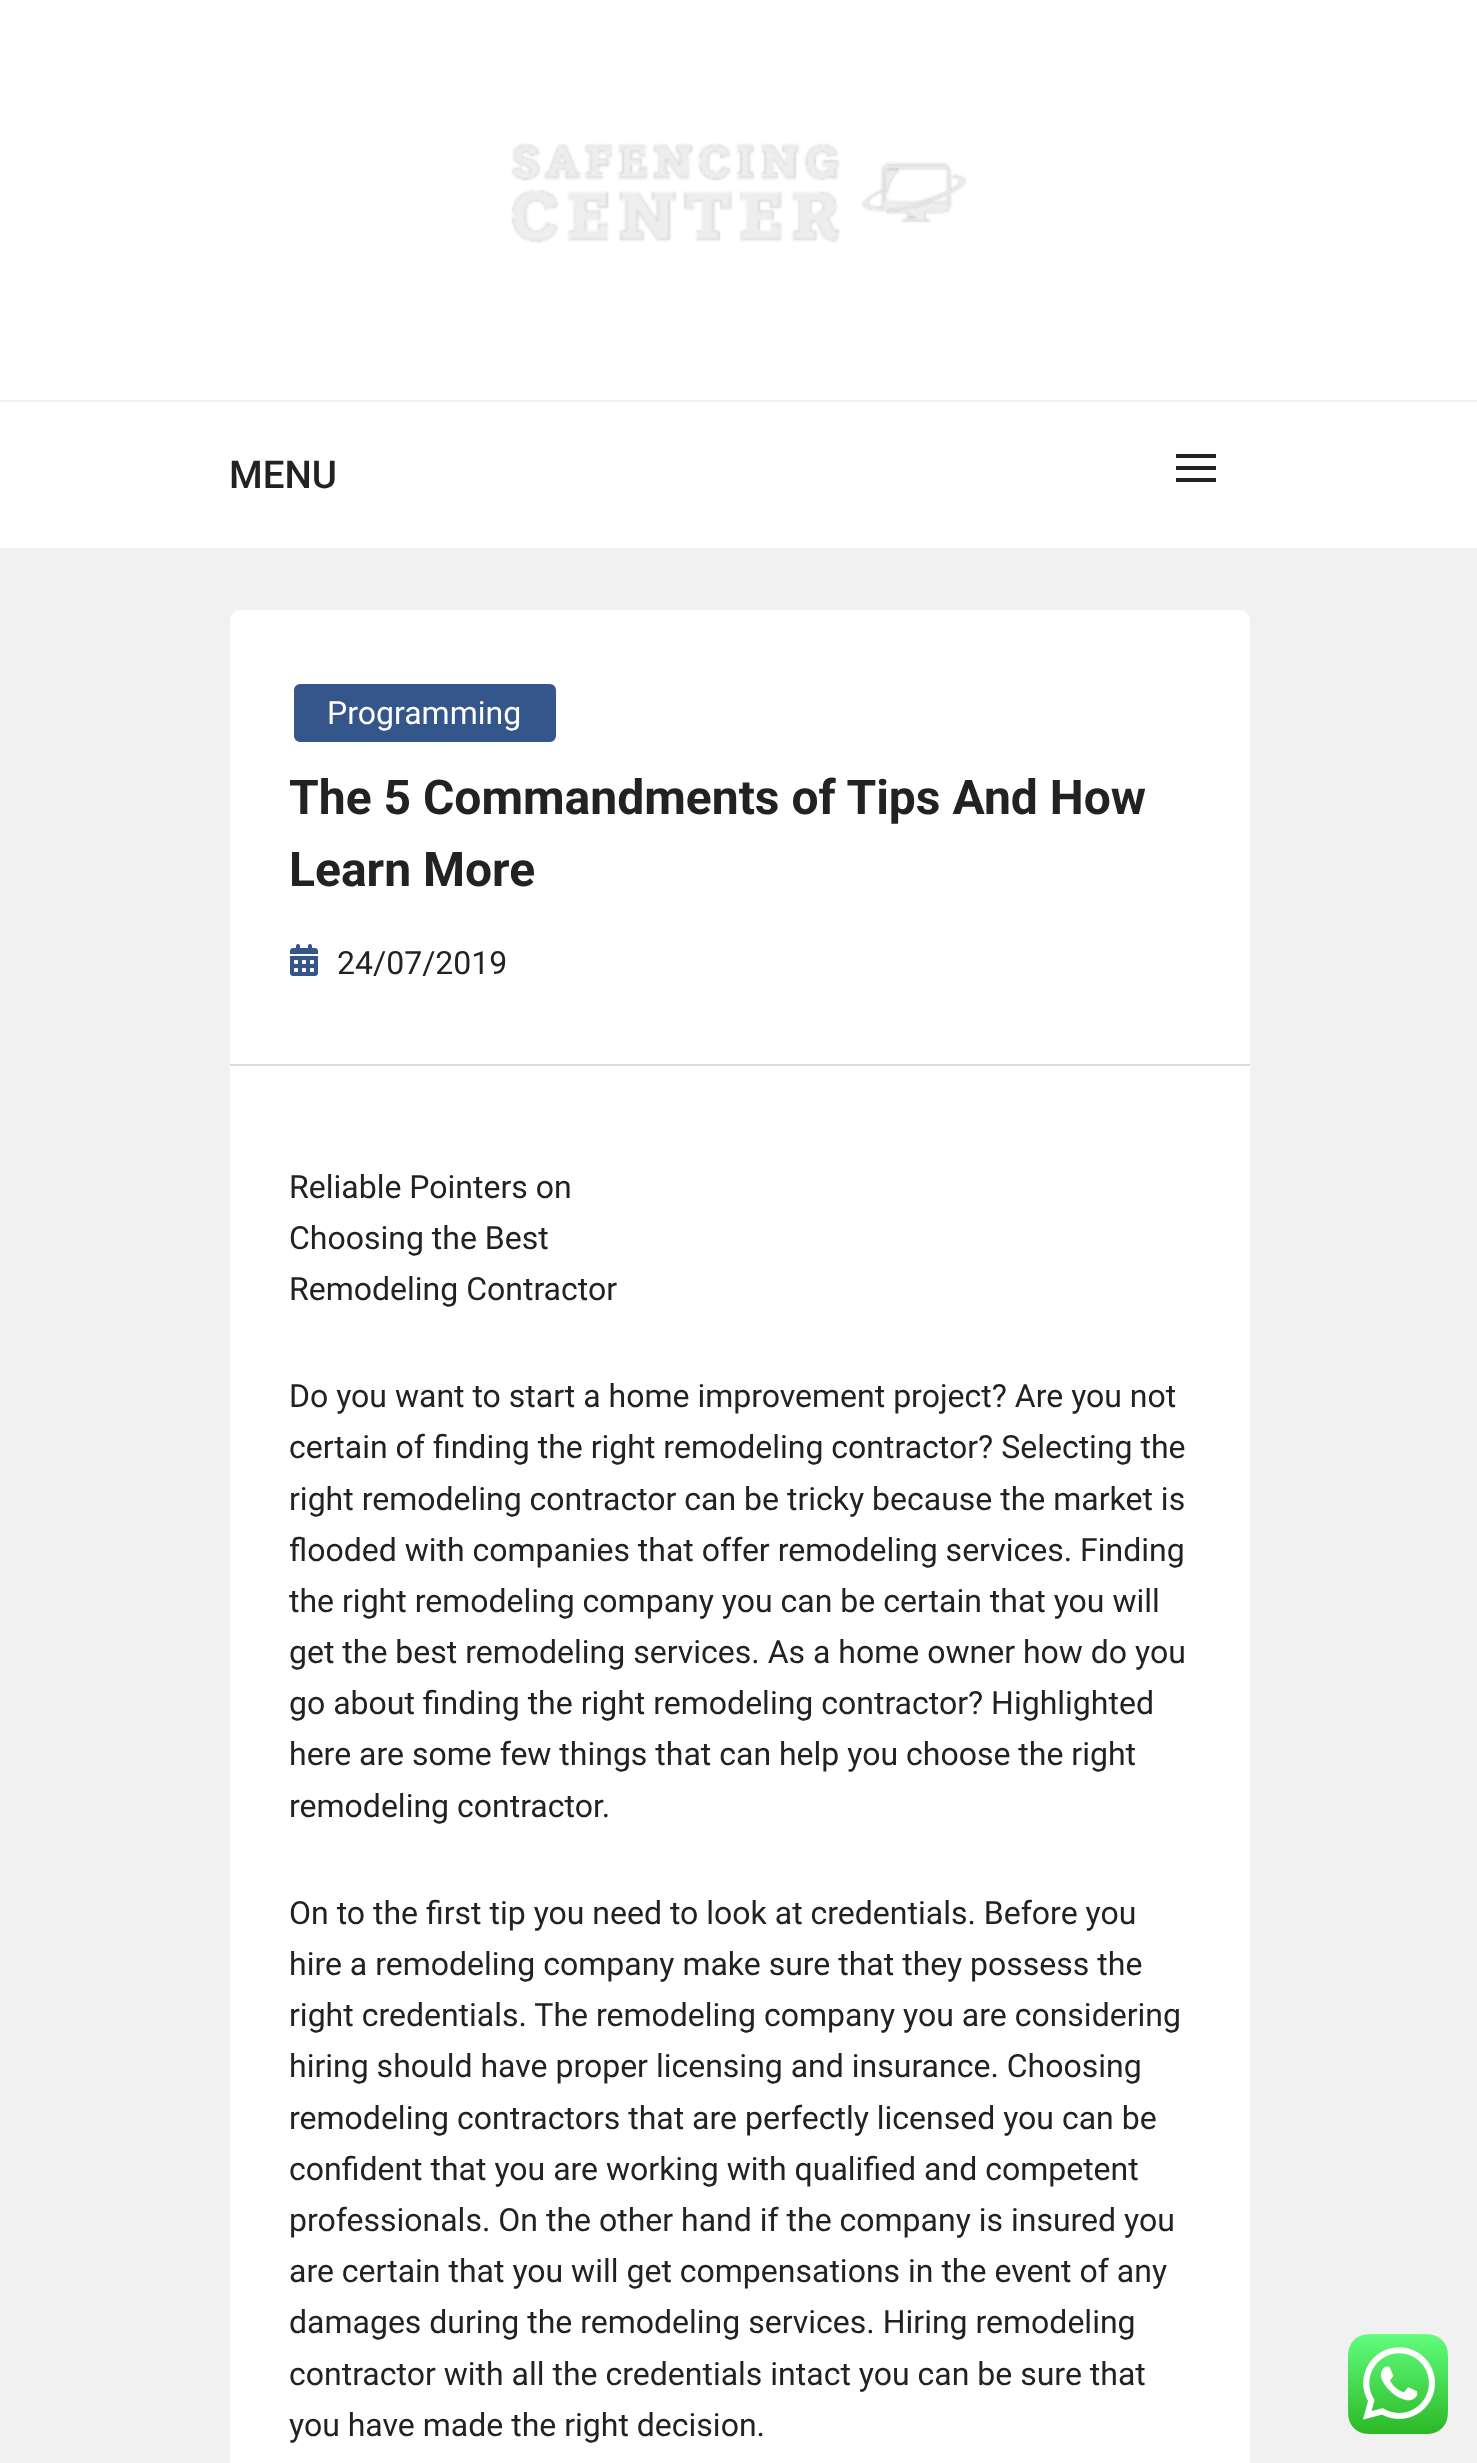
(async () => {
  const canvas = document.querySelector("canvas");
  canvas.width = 1477;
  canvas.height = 2463;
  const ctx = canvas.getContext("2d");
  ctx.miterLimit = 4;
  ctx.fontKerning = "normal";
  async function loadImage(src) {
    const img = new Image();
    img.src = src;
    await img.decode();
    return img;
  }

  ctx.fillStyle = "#f1f1f1";
  ctx.fillRect(0, 0, 1477, 2463);
  ctx.fillStyle = "#ffffff";
  ctx.fillRect(0, 0, 1477, 548);
  ctx.drawImage(await loadImage("img/1.png"), 511, 143, 456, 100);
  for (const [x, y, w, h, color] of [
    [0, 400, 1477, 2, "#f1f1f1"],
    [1176, 454, 40, 4, "#222222"],
    [1176, 466, 40, 4, "#222222"],
    [1176, 478, 40, 4, "#222222"],
  ]) {
    ctx.fillStyle = color;
    ctx.fillRect(x, y, w, h);
  }
  ctx.fillStyle = "#ffffff";
  ctx.beginPath();
  ctx.roundRect(230, 610, 1020, 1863, 10);
  ctx.fill();
  ctx.fillStyle = "#34568b";
  ctx.beginPath();
  ctx.roundRect(292, 682, 266, 62, 8);
  ctx.fill();
  ctx.strokeStyle = "#ffffff";
  ctx.lineWidth = 4;
  ctx.stroke();
  ctx.drawImage(await loadImage("img/2.png"), 290, 944, 28, 32);
  ctx.fillStyle = "#dddddd";
  ctx.fillRect(230, 1064, 1020, 2);
  ctx.drawImage(await loadImage("img/3.png"), 1348, 2334, 100, 100);
  ctx.font = "500 38.5px Roboto";
  ctx.fillStyle = "#222222";
  ctx.fillText("MENU", 229, 488);
  ctx.font = "32px Roboto";
  ctx.fillStyle = "#ffffff";
  ctx.fillText("Programming", 327, 724);
  ctx.font = "bold 48px Roboto";
  ctx.fillStyle = "#222222";
  ctx.fillText("The 5 Commandments of Tips And How", 289, 814);
  ctx.fillText("Learn More", 289, 886);
  ctx.font = "32px Roboto";
  for (const [text, x, y] of [
    ["24/07/2019", 337, 974],
    ["Reliable Pointers on", 289, 1198],
    ["Choosing the Best", 289, 1249],
    ["Remodeling Contractor", 289, 1300],
    ["Do you want to start a home improvement project? Are you not", 289, 1407],
    ["certain of finding the right remodeling contractor? Selecting the", 289, 1458],
    ["right remodeling contractor can be tricky because the market is", 289, 1510],
    ["flooded with companies that offer remodeling services. Finding", 289, 1561],
    ["the right remodeling company you can be certain that you will", 289, 1612],
    ["get the best remodeling services. As a home owner how do you", 289, 1663],
    ["go about finding the right remodeling contractor? Highlighted", 289, 1714],
    ["here are some few things that can help you choose the right", 289, 1765],
    ["remodeling contractor.", 289, 1817],
    ["On to the first tip you need to look at credentials. Before you", 289, 1924],
    ["hire a remodeling company make sure that they possess the", 289, 1975],
    ["right credentials. The remodeling company you are considering", 289, 2026],
    ["hiring should have proper licensing and insurance. Choosing", 289, 2077],
    ["remodeling contractors that are perfectly licensed you can be", 289, 2129],
    ["confident that you are working with qualified and competent", 289, 2180],
    ["professionals. On the other hand if the company is insured you", 289, 2231],
    ["are certain that you will get compensations in the event of any", 289, 2282],
    ["damages during the remodeling services. Hiring remodeling", 289, 2333],
    ["contractor with all the credentials intact you can be sure that", 289, 2385],
    ["you have made the right decision.", 289, 2436],
  ]) {
    ctx.fillText(text, x, y);
  }
})();
